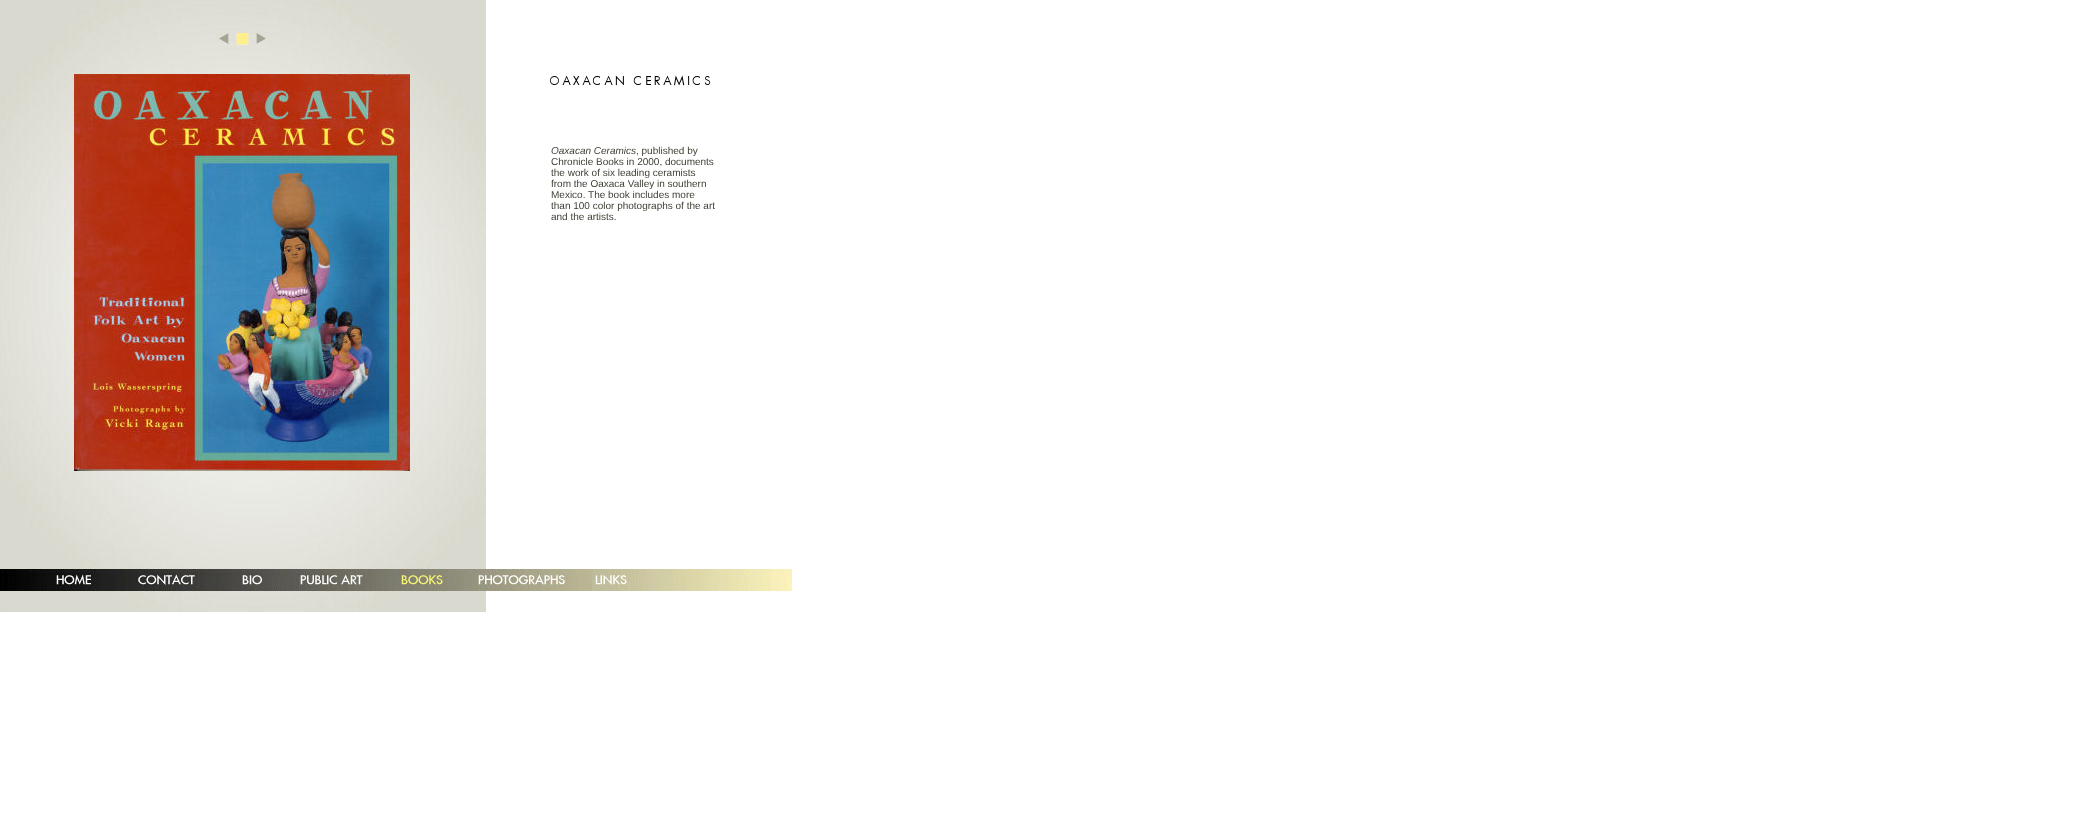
(async () => {
  const canvas = document.querySelector("canvas");
  canvas.width = 2093;
  canvas.height = 824;
  const ctx = canvas.getContext("2d");
  ctx.miterLimit = 4;
  ctx.fontKerning = "normal";
  async function loadImage(src) {
    const img = new Image();
    img.src = src;
    await img.decode();
    return img;
  }

  ctx.fillStyle = "#ffffff";
  ctx.fillRect(0, 0, 2093, 824);
  ctx.drawImage(await loadImage("img/1.png"), 0, 0, 486, 612);
  ctx.drawImage(await loadImage("img/2.png"), 219, 33, 47, 12);
  ctx.drawImage(await loadImage("img/3.png"), 74, 74, 336, 397);
  ctx.drawImage(await loadImage("img/4.png"), 550, 75, 161, 11);
  ctx.drawImage(await loadImage("img/5.png"), 0, 569, 792, 22);
  ctx.drawImage(await loadImage("img/6.png"), 54, 570, 39, 21);
  ctx.drawImage(await loadImage("img/7.png"), 136, 571, 61, 20);
  ctx.drawImage(await loadImage("img/8.png"), 240, 569, 24, 22);
  ctx.drawImage(await loadImage("img/9.png"), 298, 571, 67, 20);
  ctx.drawImage(await loadImage("img/10.png"), 399, 569, 46, 22);
  ctx.drawImage(await loadImage("img/11.png"), 476, 569, 91, 22);
  ctx.drawImage(await loadImage("img/12.png"), 593, 569, 36, 22);
  ctx.font = "italic 10px Liberation Sans";
  ctx.fillStyle = "#3e4035";
  ctx.fillText("Oaxacan Ceramics", 551, 154);
  ctx.font = "10px Liberation Sans";
  for (const [text, x, y] of [
    [", published by", 636, 154],
    ["Chronicle Books in 2000, documents", 551, 165],
    ["the work of six leading ceramists", 551, 176],
    ["from the Oaxaca Valley in southern", 551, 187],
    ["Mexico. The book includes more", 551, 198],
    ["than 100 color photographs of the art", 551, 209],
    ["and the artists.", 551, 220],
  ]) {
    ctx.fillText(text, x, y);
  }
})();
